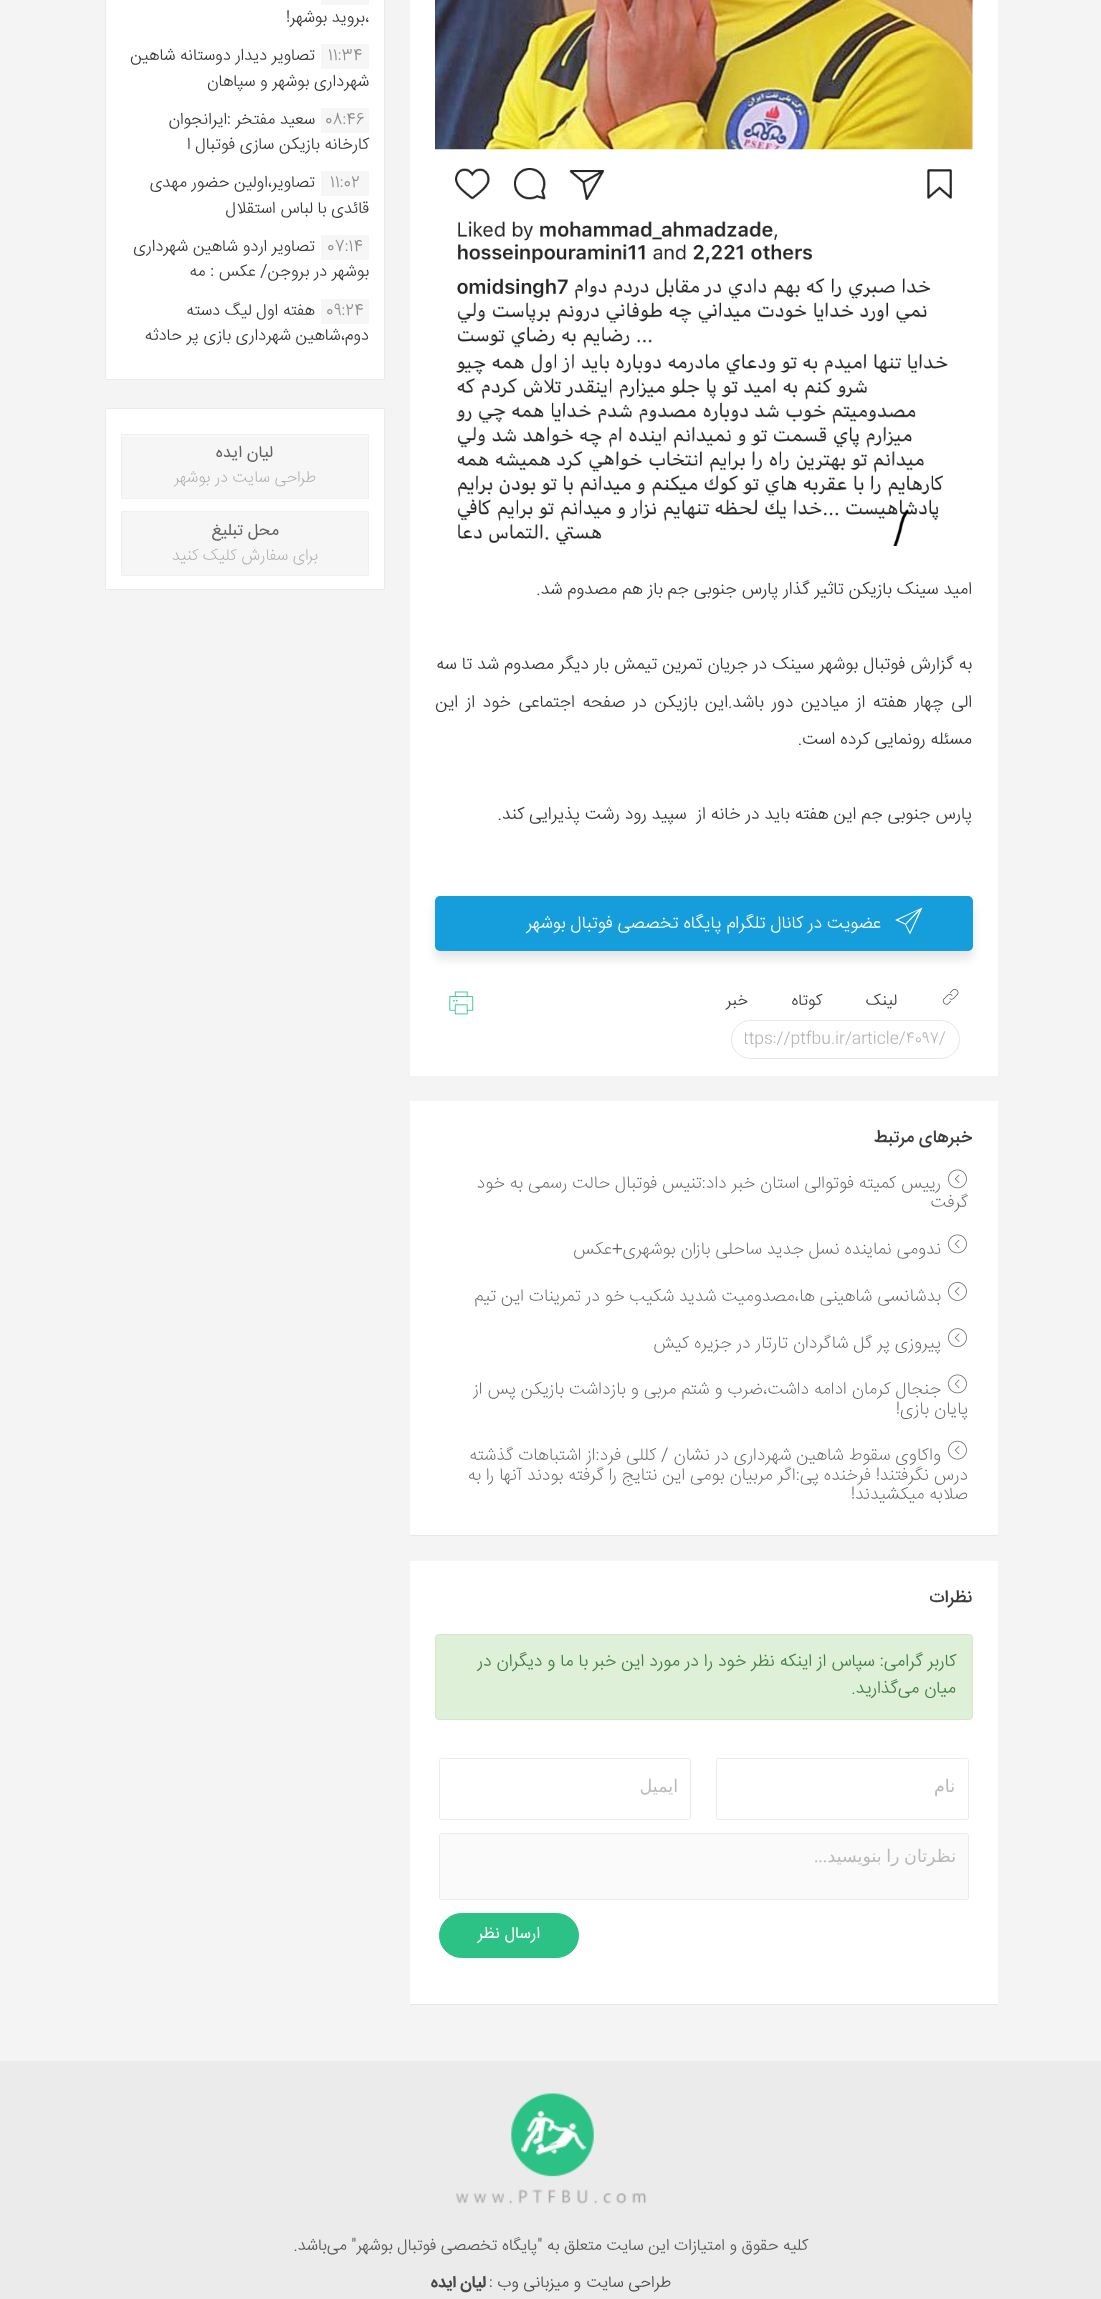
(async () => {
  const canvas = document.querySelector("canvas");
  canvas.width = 1101;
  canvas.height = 2299;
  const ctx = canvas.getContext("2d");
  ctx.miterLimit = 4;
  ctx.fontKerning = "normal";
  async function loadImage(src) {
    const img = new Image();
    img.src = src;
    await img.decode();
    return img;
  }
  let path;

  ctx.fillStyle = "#f4f4f4";
  ctx.fillRect(0, 0, 1101, 2299);
  ctx.fillStyle = "#ffffff";
  ctx.beginPath();
  ctx.rect(105.5, -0.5, 279, 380);
  ctx.fill();
  ctx.strokeStyle = "#ebebeb";
  ctx.stroke();
  for (const [x, y, w, h, color] of [
    [321, 0, 48, 5, "#f6f6f6"],
    [321, 44, 48, 25, "#f6f6f6"],
    [321, 108, 48, 25, "#f6f6f6"],
    [321, 171, 48, 25, "#f6f6f6"],
    [321, 235, 48, 25, "#f6f6f6"],
    [321, 299, 48, 25, "#f6f6f6"],
  ]) {
    ctx.fillStyle = color;
    ctx.fillRect(x, y, w, h);
  }
  ctx.fillStyle = "#ffffff";
  ctx.beginPath();
  ctx.rect(105.5, 408.5, 279, 181);
  ctx.fill();
  ctx.stroke();
  ctx.fillStyle = "#f6f6f6";
  ctx.beginPath();
  ctx.rect(121.5, 434.5, 247, 64);
  ctx.fill();
  ctx.strokeStyle = "#f0f0f0";
  ctx.stroke();
  ctx.beginPath();
  ctx.rect(121.5, 511.5, 247, 64);
  ctx.fill();
  ctx.stroke();
  ctx.fillStyle = "#ffffff";
  ctx.fillRect(410, 0, 588, 1076);
  ctx.drawImage(await loadImage("img/1.png"), 435, 0, 538, 546);
  ctx.fillStyle = "rgba(0, 0, 0, 0.1)";
  ctx.filter = "blur(5px)";
  ctx.beginPath();
  ctx.roundRect(435, 904, 538, 55, 5);
  ctx.fill();
  ctx.filter = "none";
  ctx.fillStyle = "#169ddc";
  ctx.beginPath();
  ctx.roundRect(435, 896, 538, 55, 5);
  ctx.fill();
  ctx.fillStyle = "#ffffff";
  path = new Path2D("M905 924.5L910 934.5L922.5 907.5L895 920ZM905.5 923.5L898 920L918.5 910ZM910 932L906 924.5L919.5 911Z");
  ctx.fill(path);
  ctx.drawImage(await loadImage("img/2.png"), 942, 989, 17, 16);
  ctx.beginPath();
  ctx.roundRect(731.5, 1020.5, 228, 38, 19);
  ctx.strokeStyle = "#e6e6e6";
  ctx.stroke();
  ctx.drawImage(await loadImage("img/3.png"), 449, 991, 25, 24);
  ctx.fillRect(410, 1101, 588, 434);
  ctx.fillStyle = "#e6e6e6";
  ctx.fillRect(410, 1535, 588, 1);
  ctx.drawImage(await loadImage("img/4.png"), 948, 1169, 19, 20);
  ctx.drawImage(await loadImage("img/4.png"), 948, 1234, 19, 20);
  ctx.drawImage(await loadImage("img/5.png"), 948, 1282, 19, 19);
  ctx.drawImage(await loadImage("img/6.png"), 948, 1328, 19, 19);
  ctx.drawImage(await loadImage("img/4.png"), 948, 1374, 19, 20);
  ctx.drawImage(await loadImage("img/7.png"), 948, 1440, 19, 20);
  ctx.fillStyle = "#ffffff";
  ctx.fillRect(410, 1561, 588, 443);
  ctx.fillStyle = "#e6e6e6";
  ctx.fillRect(410, 2004, 588, 1);
  ctx.fillStyle = "#dff0d8";
  ctx.beginPath();
  ctx.roundRect(435.5, 1634.5, 537, 85, 3.5);
  ctx.fill();
  ctx.strokeStyle = "#d6e9c6";
  ctx.stroke();
  ctx.beginPath();
  ctx.roundRect(716.5, 1758.5, 252, 61, 2);
  ctx.strokeStyle = "#ebebeb";
  ctx.stroke();
  ctx.beginPath();
  ctx.roundRect(439.5, 1758.5, 251, 61, 2);
  ctx.stroke();
  ctx.fillStyle = "#fafafa";
  ctx.beginPath();
  ctx.roundRect(440, 1834, 528, 65, 1);
  ctx.fill();
  ctx.beginPath();
  ctx.roundRect(439.5, 1833.5, 529, 66, 2);
  ctx.stroke();
  ctx.fillStyle = "#2cc185";
  ctx.beginPath();
  ctx.roundRect(439.5, 1913.5, 139, 44, 22);
  ctx.fill();
  ctx.strokeStyle = "#2cc185";
  ctx.stroke();
  ctx.fillStyle = "#ebebeb";
  ctx.fillRect(0, 2061, 1101, 238);
  ctx.drawImage(await loadImage("img/8.png"), 456, 2093, 191, 111);
  ctx.direction = "rtl";
  ctx.font = "300 16.6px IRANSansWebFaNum";
  ctx.fillStyle = "#363636";
  ctx.fillText("،بروید بوشهر!", 369, 22);
  ctx.direction = "ltr";
  ctx.font = "300 16.25px IRANSansWebFaNum";
  ctx.fillStyle = "#8b8b8b";
  ctx.fillText("11:34", 328, 60);
  ctx.direction = "rtl";
  ctx.font = "300 16.6px IRANSansWebFaNum";
  ctx.fillStyle = "#363636";
  ctx.fillText("تصاویر دیدار دوستانه شاهین", 315, 60);
  ctx.fillText("شهردارى بوشهر و سپاهان", 369, 86);
  ctx.direction = "ltr";
  ctx.font = "300 16.25px IRANSansWebFaNum";
  ctx.fillStyle = "#8b8b8b";
  ctx.fillText("08:46", 325, 124);
  ctx.direction = "rtl";
  ctx.font = "300 16.6px IRANSansWebFaNum";
  ctx.fillStyle = "#363636";
  ctx.fillText("سعید مفتخر :ایرانجوان", 315, 124);
  ctx.fillText("کارخانه بازیکن سازی فوتبال ا", 369, 149);
  ctx.direction = "ltr";
  ctx.font = "300 16.25px IRANSansWebFaNum";
  ctx.fillStyle = "#8b8b8b";
  ctx.fillText("11:02", 330, 187);
  ctx.direction = "rtl";
  ctx.font = "300 16.6px IRANSansWebFaNum";
  ctx.fillStyle = "#363636";
  ctx.fillText("تصاویر،اولین حضور مهدی", 315, 187);
  ctx.fillText("قائدی با لباس استقلال", 369, 213);
  ctx.direction = "ltr";
  ctx.font = "300 16.25px IRANSansWebFaNum";
  ctx.fillStyle = "#8b8b8b";
  ctx.fillText("07:14", 327, 251);
  ctx.direction = "rtl";
  ctx.font = "300 16.6px IRANSansWebFaNum";
  ctx.fillStyle = "#363636";
  ctx.fillText("تصاویر اردو شاهین شهرداری", 315, 251);
  ctx.fillText("بوشهر در بروجن/ عکس : مه", 369, 276);
  ctx.direction = "ltr";
  ctx.font = "300 16.25px IRANSansWebFaNum";
  ctx.fillStyle = "#8b8b8b";
  ctx.fillText("09:24", 326, 315);
  ctx.direction = "rtl";
  ctx.font = "300 16.6px IRANSansWebFaNum";
  ctx.fillStyle = "#363636";
  ctx.fillText("هفته اول لیگ دسته", 315, 315);
  ctx.fillText("دوم،شاهین شهرداری بازی پر حادثه", 369, 340);
  ctx.font = "16.5px IRANSansWebFaNum";
  ctx.fillStyle = "#626262";
  ctx.fillText("لیان ایده", 273, 457);
  ctx.font = "200 16.25px IRANSansWebFaNum";
  ctx.fillStyle = "#a9a9a9";
  ctx.fillText("طراحی سایت در بوشهر", 316, 482);
  ctx.font = "16.5px IRANSansWebFaNum";
  ctx.fillStyle = "#626262";
  ctx.fillText("محل تبلیغ", 279, 535);
  ctx.font = "200 16.25px IRANSansWebFaNum";
  ctx.fillStyle = "#a9a9a9";
  ctx.fillText("برای سفارش کلیک کنید", 318, 560);
  ctx.font = "300 17.5px IRANSansWebFaNum";
  ctx.fillStyle = "#363636";
  ctx.fillText("امید سینک بازیکن تاثیر گذار پارس جنوبی جم باز هم مصدوم شد.", 972, 594);
  ctx.wordSpacing = "0.1px";
  ctx.fillText("به گزارش فوتبال بوشهر سینک در جریان تمرین تیمش بار دیگر مصدوم شد تا سه", 972, 669);
  ctx.wordSpacing = "2.6px";
  ctx.fillText("الی چهار هفته از میادین دور باشد.این بازیکن در صفحه اجتماعی خود از این", 972, 707);
  ctx.wordSpacing = "0px";
  ctx.fillText("مسئله رونمایی کرده است.", 972, 744);
  ctx.fillText("پارس جنوبی جم این هفته باید در خانه از  سپید رود رشت پذیرایی کند.", 972, 819);
  ctx.fillStyle = "#ffffff";
  ctx.fillText("عضویت در کانال تلگرام پایگاه تخصصی فوتبال بوشهر", 881, 928);
  ctx.wordSpacing = "39px";
  ctx.font = "300 16.25px IRANSansWebFaNum";
  ctx.fillStyle = "#363636";
  ctx.fillText("لینک کوتاه خبر", 897, 1005);
  ctx.save();
  ctx.beginPath();
  ctx.rect(745, 1026, 201, 28);
  ctx.clip();
  ctx.wordSpacing = "0px";
  ctx.direction = "ltr";
  ctx.font = "200 16.25px IRANSansWebFaNum";
  ctx.fillStyle = "#afafaf";
  ctx.fillText("ttps://ptfbu.ir/article/4097/", 743, 1043);
  ctx.restore();
  ctx.wordSpacing = "0px";
  ctx.font = "500 17.5px IRANSansWebFaNum";
  ctx.fillStyle = "#3d3d3d";
  ctx.fillText("خبر‌های مرتبط", 972, 1142);
  ctx.font = "200 17.5px IRANSansWebFaNum";
  ctx.fillStyle = "#626262";
  for (const [text, x, y] of [
    ["رییس کمیته فوتوالی استان خبر داد:تنیس فوتبال حالت رسمی به خود", 941, 1188],
    ["گرفت", 968, 1207],
    ["ندومی نماینده نسل جدید ساحلی بازان بوشهری+عکس", 941, 1254],
    ["بدشانسی شاهینی ها،مصدومیت شدید شکیب خو در تمرینات این تیم", 941, 1301],
    ["پیروزی پر گل شاگردان تارتار در جزیره کیش", 941, 1348],
    ["جنجال کرمان ادامه داشت،ضرب و شتم مربی و بازداشت بازیکن پس از", 941, 1394],
    ["پایان بازی!", 968, 1414],
    ["واکاوی سقوط شاهین شهرداری در نشان / کللی فرد:از اشتباهات گذشته", 941, 1460],
    ["درس نگرفتند! فرخنده پی:اگر مربیان بومی این نتایج را گرفته بودند آنها را به", 968, 1480],
    ["صلابه میکشیدند!", 968, 1499],
  ]) {
    ctx.fillText(text, x, y);
  }
  ctx.font = "500 17.5px IRANSansWebFaNum";
  ctx.fillStyle = "#3d3d3d";
  ctx.fillText("نظرات", 972, 1602);
  ctx.font = "300 17.5px IRANSansWebFaNum";
  ctx.fillStyle = "#417d42";
  ctx.fillText("کاربر گرامی: سپاس از اینکه نظر خود را در مورد این خبر با ما و دیگران در", 956, 1666);
  ctx.fillText("میان می‌گذارید.", 956, 1693);
  ctx.font = "17.5px DejaVu Sans";
  ctx.fillStyle = "#bababa";
  ctx.fillText("نام", 955, 1792);
  ctx.fillText("ایمیل", 678, 1792);
  ctx.wordSpacing = "-1px";
  ctx.fillText("نظرتان را بنویسید", 956, 1862);
  ctx.wordSpacing = "0px";
  ctx.font = "17.5px Liberation Serif";
  ctx.fillText("...", 827, 1862);
  ctx.font = "16.25px IRANSansWebFaNum";
  ctx.fillStyle = "#ffffff";
  ctx.fillText("ارسال نظر", 540, 1938);
  ctx.font = "300 16.25px IRANSansWebFaNum";
  ctx.fillStyle = "#545454";
  ctx.fillText("کلیه حقوق و امتیازات این سایت متعلق به \"پایگاه تخصصی فوتبال بوشهر\" می‌باشد.", 808, 2250);
  ctx.fillStyle = "#4a4747";
  ctx.fillText("طراحی سایت", 671, 2287);
  ctx.fillText("و میزبانی وب :", 581, 2287);
  ctx.font = "bold 16.25px IRANSansWebFaNum";
  ctx.fillText("لیان ایده", 486, 2287);
})();
